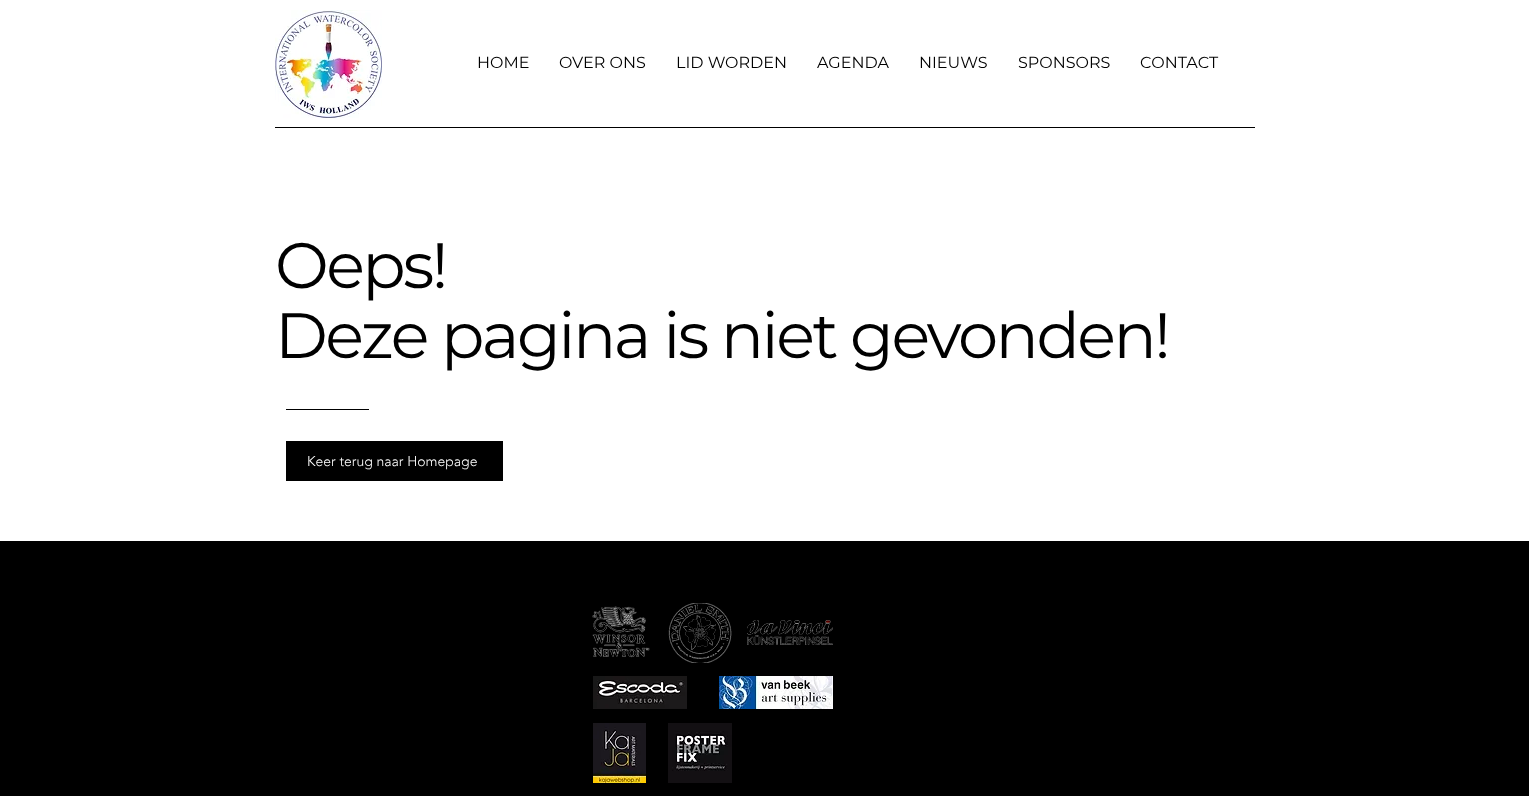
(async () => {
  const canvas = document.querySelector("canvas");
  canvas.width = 1529;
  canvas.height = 796;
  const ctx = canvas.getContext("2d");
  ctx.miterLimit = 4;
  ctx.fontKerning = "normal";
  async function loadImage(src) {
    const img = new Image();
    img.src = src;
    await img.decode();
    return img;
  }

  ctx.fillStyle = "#ffffff";
  ctx.fillRect(0, 0, 1529, 796);
  ctx.drawImage(await loadImage("img/1.png"), 275, 10, 107, 108);
  for (const [x, y, w, h, color] of [
    [275, 127, 980, 1, "#000000"],
    [286, 409, 83, 1, "#000000"],
    [286, 441, 217, 40, "#000000"],
    [0, 541, 1529, 255, "#000000"],
  ]) {
    ctx.fillStyle = color;
    ctx.fillRect(x, y, w, h);
  }
  ctx.drawImage(await loadImage("img/2.png"), 592, 606, 58, 52);
  ctx.drawImage(await loadImage("img/3.png"), 668, 603, 64, 60);
  ctx.drawImage(await loadImage("img/4.png"), 747, 620, 86, 25);
  ctx.drawImage(await loadImage("img/5.png"), 593, 676, 94, 33);
  ctx.drawImage(await loadImage("img/6.png"), 719, 676, 114, 33);
  ctx.drawImage(await loadImage("img/7.png"), 593, 723, 53, 60);
  ctx.drawImage(await loadImage("img/8.png"), 668, 723, 64, 60);
  ctx.font = "16px Montserrat";
  for (const [text, x, y] of [
    ["HOME", 477, 68],
    ["OVER ONS", 559, 68],
    ["LID WORDEN", 676, 68],
    ["AGENDA", 817, 68],
    ["NIEUWS", 919, 68],
    ["SPONSORS", 1018, 68],
    ["CONTACT", 1140, 68],
  ]) {
    ctx.fillText(text, x, y);
  }
  ctx.letterSpacing = "-2.55px";
  ctx.font = "64px Montserrat";
  ctx.fillText("Oeps!", 275, 288);
  ctx.fillText("Deze pagina is niet gevonden!", 275, 358);
  ctx.letterSpacing = "0px";
  ctx.font = "300 14px 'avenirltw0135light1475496'";
  ctx.fillStyle = "#ffffff";
  ctx.fillText("Keer terug naar Homepage", 307, 466);
})();
